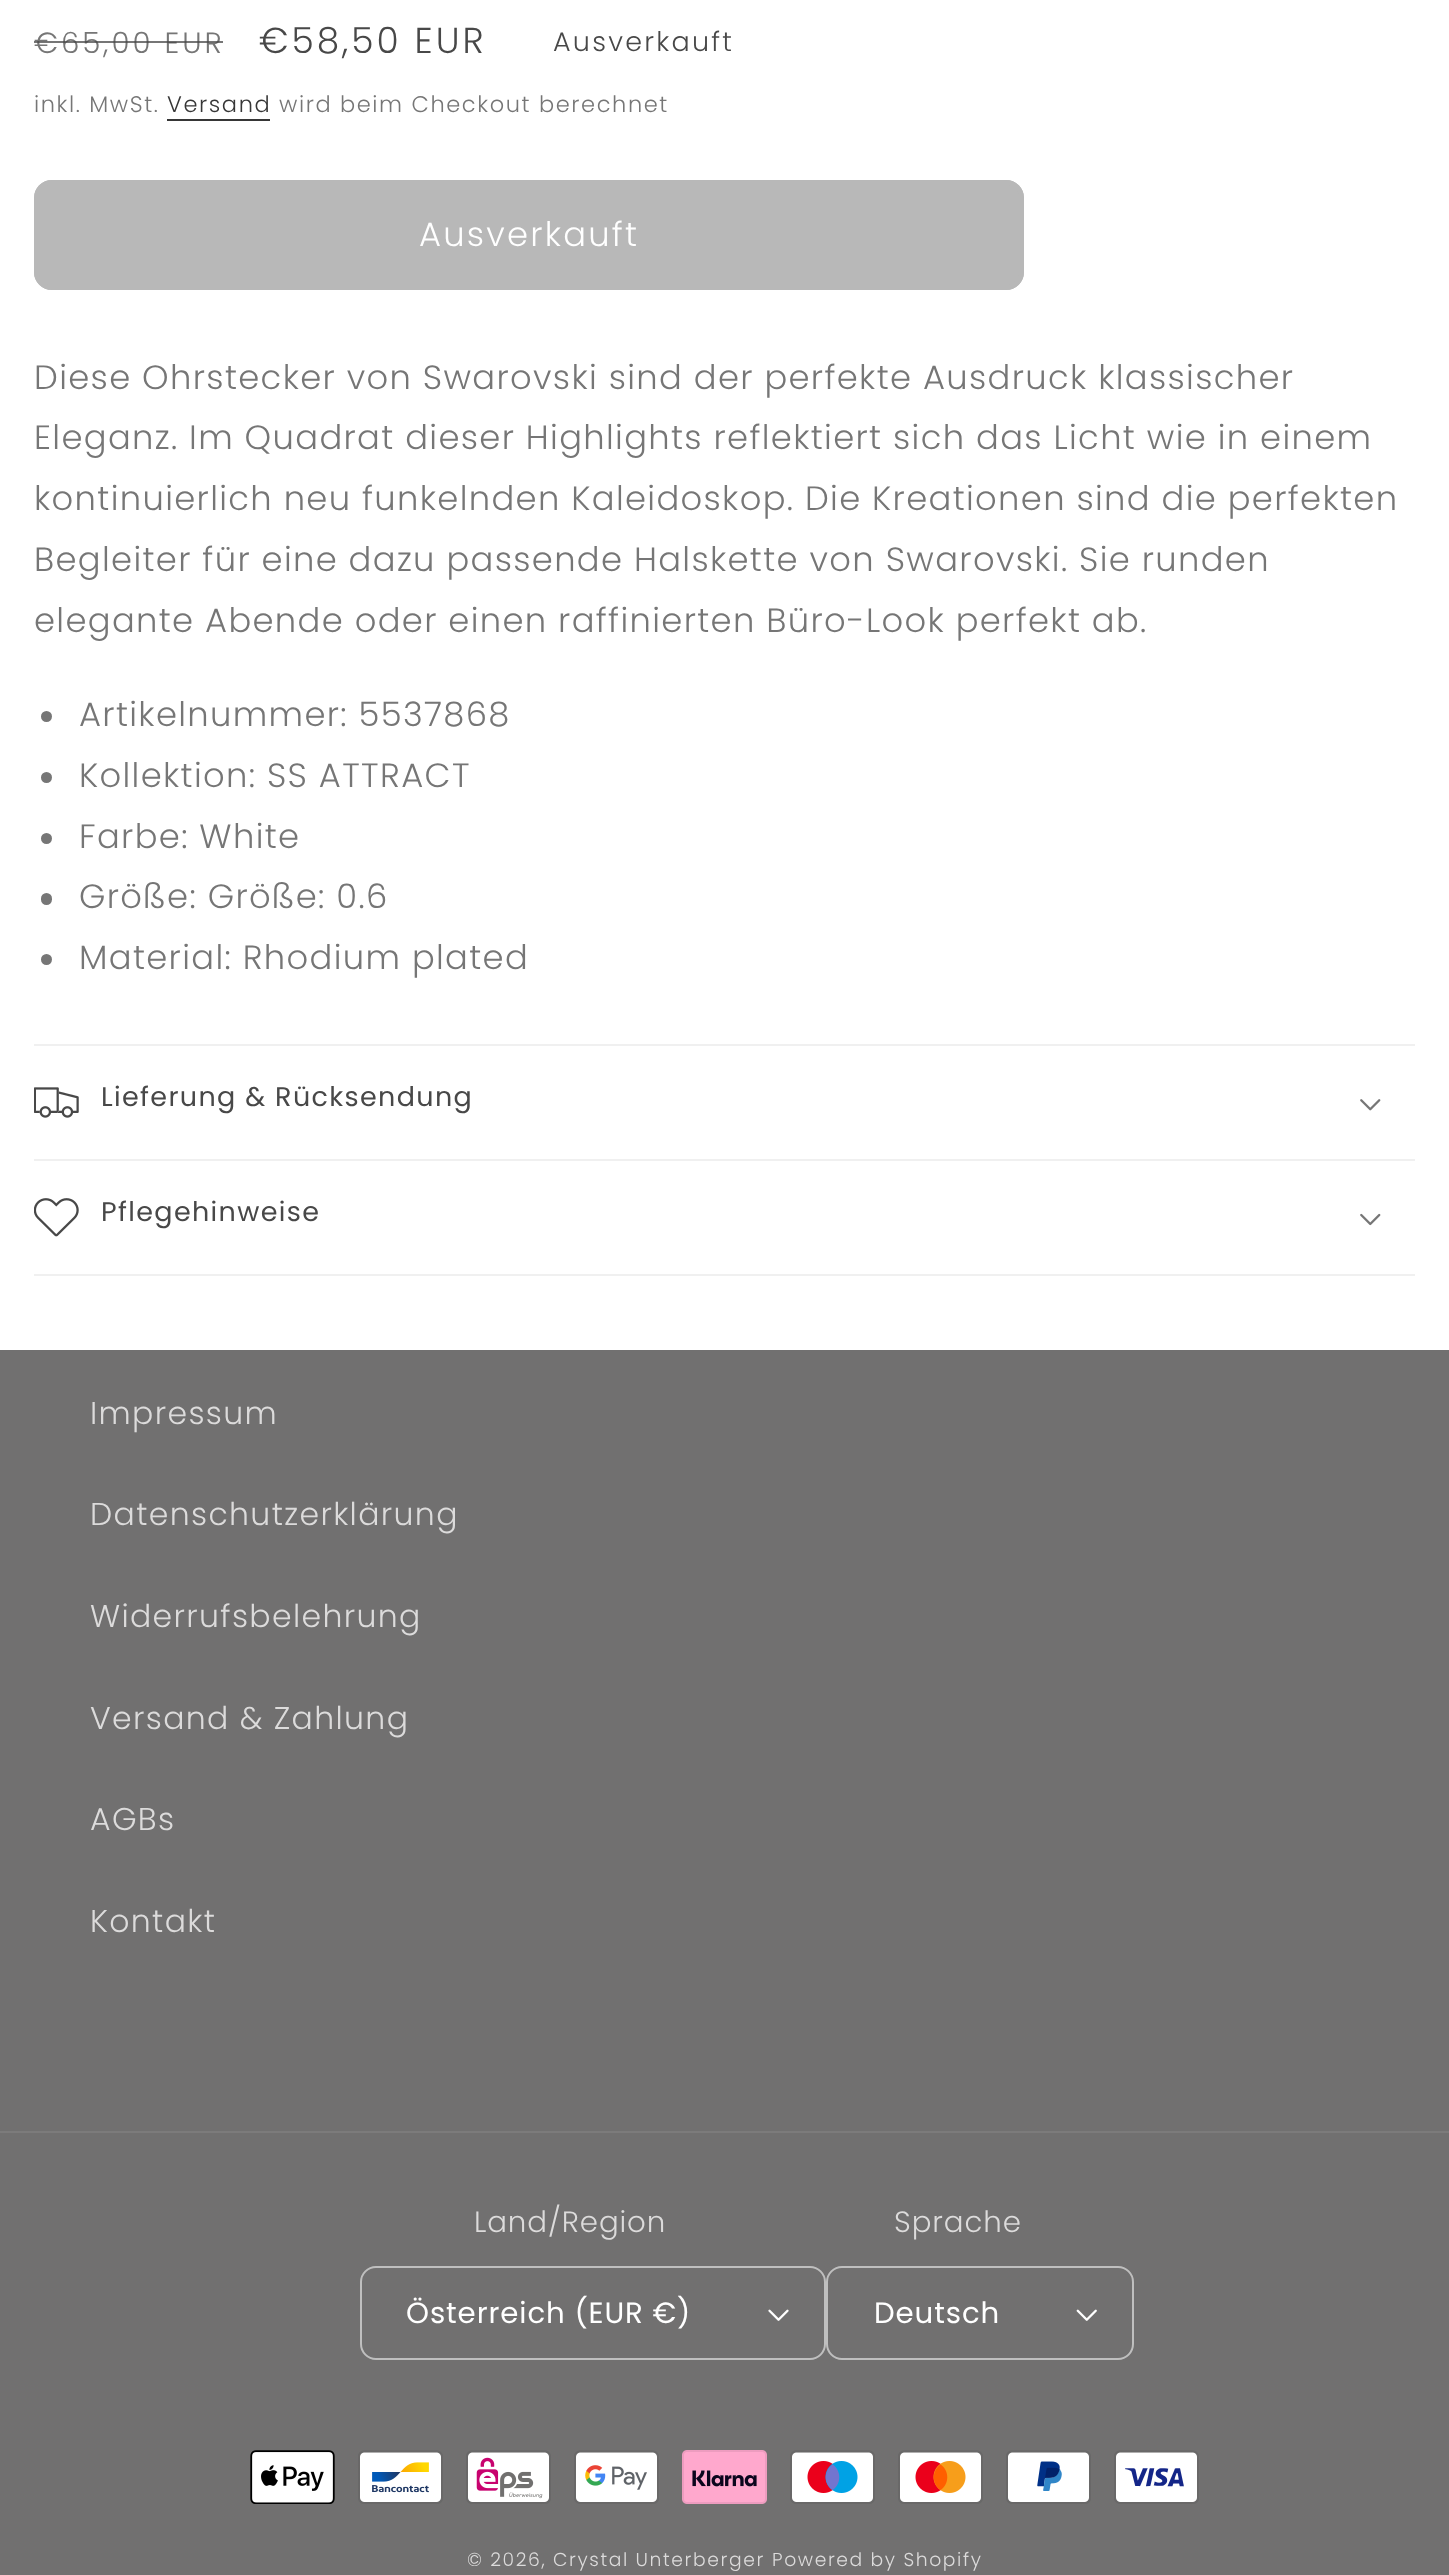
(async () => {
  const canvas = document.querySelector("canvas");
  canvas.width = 1449;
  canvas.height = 2575;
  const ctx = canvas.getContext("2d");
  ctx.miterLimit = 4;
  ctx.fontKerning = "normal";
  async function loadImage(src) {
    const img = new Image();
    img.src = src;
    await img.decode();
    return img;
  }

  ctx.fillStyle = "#ffffff";
  ctx.fillRect(0, 0, 1449, 2575);
  ctx.fillStyle = "#363636";
  ctx.fillRect(167, 119, 103, 2);
  ctx.fillStyle = "#b8b8b8";
  ctx.beginPath();
  ctx.roundRect(34, 180, 990, 110, 18);
  ctx.fill();
  ctx.beginPath();
  ctx.roundRect(36.5, 182.5, 985, 105, 15.5);
  ctx.strokeStyle = "#b8b8b8";
  ctx.lineWidth = 5;
  ctx.stroke();
  ctx.fillStyle = "#767676";
  ctx.beginPath();
  ctx.arc(46.5, 716.5, 5.5, 0, Math.PI * 2);
  ctx.fill();
  ctx.beginPath();
  ctx.arc(46.5, 777.5, 5.5, 0, Math.PI * 2);
  ctx.fill();
  ctx.beginPath();
  ctx.arc(46.5, 838.5, 5.5, 0, Math.PI * 2);
  ctx.fill();
  ctx.beginPath();
  ctx.roundRect(41, 893, 11, 12, 5.5);
  ctx.fill();
  ctx.beginPath();
  ctx.arc(46.5, 959.5, 5.5, 0, Math.PI * 2);
  ctx.fill();
  ctx.fillStyle = "#f0f0f0";
  ctx.fillRect(34, 1044, 1381, 2);
  ctx.fillRect(34, 1159, 1381, 2);
  ctx.drawImage(await loadImage("img/1.png"), 34, 1087, 45, 31);
  ctx.drawImage(await loadImage("img/2.png"), 1360, 1099, 21, 12);
  ctx.fillRect(34, 1274, 1381, 2);
  ctx.drawImage(await loadImage("img/3.png"), 34, 1198, 45, 39);
  ctx.drawImage(await loadImage("img/4.png"), 1360, 1213, 21, 13);
  ctx.fillStyle = "#717070";
  ctx.fillRect(0, 1350, 1449, 1225);
  ctx.fillStyle = "#7c7b7b";
  ctx.fillRect(0, 2131, 1449, 2);
  ctx.drawImage(await loadImage("img/5.png"), 768, 2309, 21, 12);
  ctx.beginPath();
  ctx.roundRect(361, 2267, 464, 92, 15);
  ctx.strokeStyle = "#bfbfbf";
  ctx.lineWidth = 2;
  ctx.stroke();
  ctx.drawImage(await loadImage("img/6.png"), 1076, 2309, 21, 12);
  ctx.beginPath();
  ctx.roundRect(827, 2267, 306, 92, 15);
  ctx.stroke();
  ctx.drawImage(await loadImage("img/7.png"), 250, 2450, 85, 54);
  ctx.drawImage(await loadImage("img/8.png"), 358, 2450, 85, 54);
  ctx.drawImage(await loadImage("img/9.png"), 466, 2450, 85, 54);
  ctx.drawImage(await loadImage("img/10.png"), 574, 2450, 85, 54);
  ctx.drawImage(await loadImage("img/11.png"), 682, 2450, 85, 54);
  ctx.drawImage(await loadImage("img/12.png"), 790, 2450, 85, 54);
  ctx.drawImage(await loadImage("img/13.png"), 898, 2450, 85, 54);
  ctx.drawImage(await loadImage("img/14.png"), 1006, 2450, 85, 54);
  ctx.drawImage(await loadImage("img/15.png"), 1114, 2450, 85, 54);
  ctx.letterSpacing = "3px";
  ctx.font = "300 29.25px Poppins";
  ctx.fillStyle = "#767676";
  ctx.fillText("€65,00 EUR", 34, 53);
  ctx.fillStyle = "rgba(72, 72, 72, 0.75)";
  ctx.fillRect(34, 41, 189, 2);
  ctx.font = "300 36px Poppins";
  ctx.fillStyle = "#484848";
  ctx.fillText("€58,50 EUR", 259, 53);
  ctx.letterSpacing = "2.25px";
  ctx.font = "300 27px Poppins";
  ctx.fillText("Ausverkauft", 553, 51);
  ctx.letterSpacing = "1.6px";
  ctx.font = "300 22.5px Poppins";
  ctx.fillStyle = "#767676";
  ctx.fillText("inkl. MwSt.", 34, 112);
  ctx.fillStyle = "#363636";
  ctx.fillText("Versand", 167, 112);
  ctx.fillStyle = "#767676";
  ctx.fillText("wird beim Checkout berechnet", 279, 112);
  ctx.letterSpacing = "2.25px";
  ctx.font = "300 33.75px Poppins";
  ctx.fillStyle = "#ffffff";
  ctx.fillText("Ausverkauft", 419, 246);
  ctx.letterSpacing = "1.35px";
  ctx.fillStyle = "#767676";
  for (const [text, x, y] of [
    ["Diese Ohrstecker von Swarovski sind der perfekte Ausdruck klassischer", 34, 389],
    ["Eleganz. Im Quadrat dieser Highlights reflektiert sich das Licht wie in einem", 34, 449],
    ["kontinuierlich neu funkelnden Kaleidoskop. Die Kreationen sind die perfekten", 34, 510],
    ["Begleiter für eine dazu passende Halskette von Swarovski. Sie runden", 34, 571],
    ["elegante Abende oder einen raffinierten Büro-Look perfekt ab.", 34, 632],
    ["Artikelnummer: 5537868", 79, 726],
    ["Kollektion: SS ATTRACT", 79, 787],
    ["Farbe: White", 79, 848],
    ["Größe: Größe: 0.6", 79, 908],
    ["Material: Rhodium plated", 79, 969],
  ]) {
    ctx.fillText(text, x, y);
  }
  ctx.font = "27px Poppins";
  ctx.fillStyle = "#484848";
  ctx.fillText("Lieferung & Rücksendung", 101, 1106);
  ctx.fillText("Pflegehinweise", 101, 1221);
  ctx.font = "300 31.5px Poppins";
  ctx.fillStyle = "#dcdbdb";
  for (const [text, x, y] of [
    ["Impressum", 90, 1424],
    ["Datenschutzerklärung", 90, 1525],
    ["Widerrufsbelehrung", 90, 1627],
    ["Versand & Zahlung", 90, 1729],
    ["AGBs", 90, 1830],
    ["Kontakt", 90, 1932],
  ]) {
    ctx.fillText(text, x, y);
  }
  ctx.letterSpacing = "0.9px";
  ctx.font = "300 29.25px Poppins";
  ctx.fillText("Land/Region", 474, 2232);
  ctx.font = "29.25px Poppins";
  ctx.fillStyle = "#ffffff";
  ctx.fillText("Österreich (EUR €)", 406, 2323);
  ctx.font = "300 29.25px Poppins";
  ctx.fillStyle = "#dcdbdb";
  ctx.fillText("Sprache", 894, 2232);
  ctx.font = "29.25px Poppins";
  ctx.fillStyle = "#ffffff";
  ctx.fillText("Deutsch", 874, 2323);
  ctx.letterSpacing = "1.6px";
  ctx.font = "300 18.75px Poppins";
  ctx.fillStyle = "#dcdbdb";
  ctx.fillText("© 2026, Crystal Unterberger", 467, 2566);
  ctx.fillText("Powered by Shopify", 772, 2566);
})();
